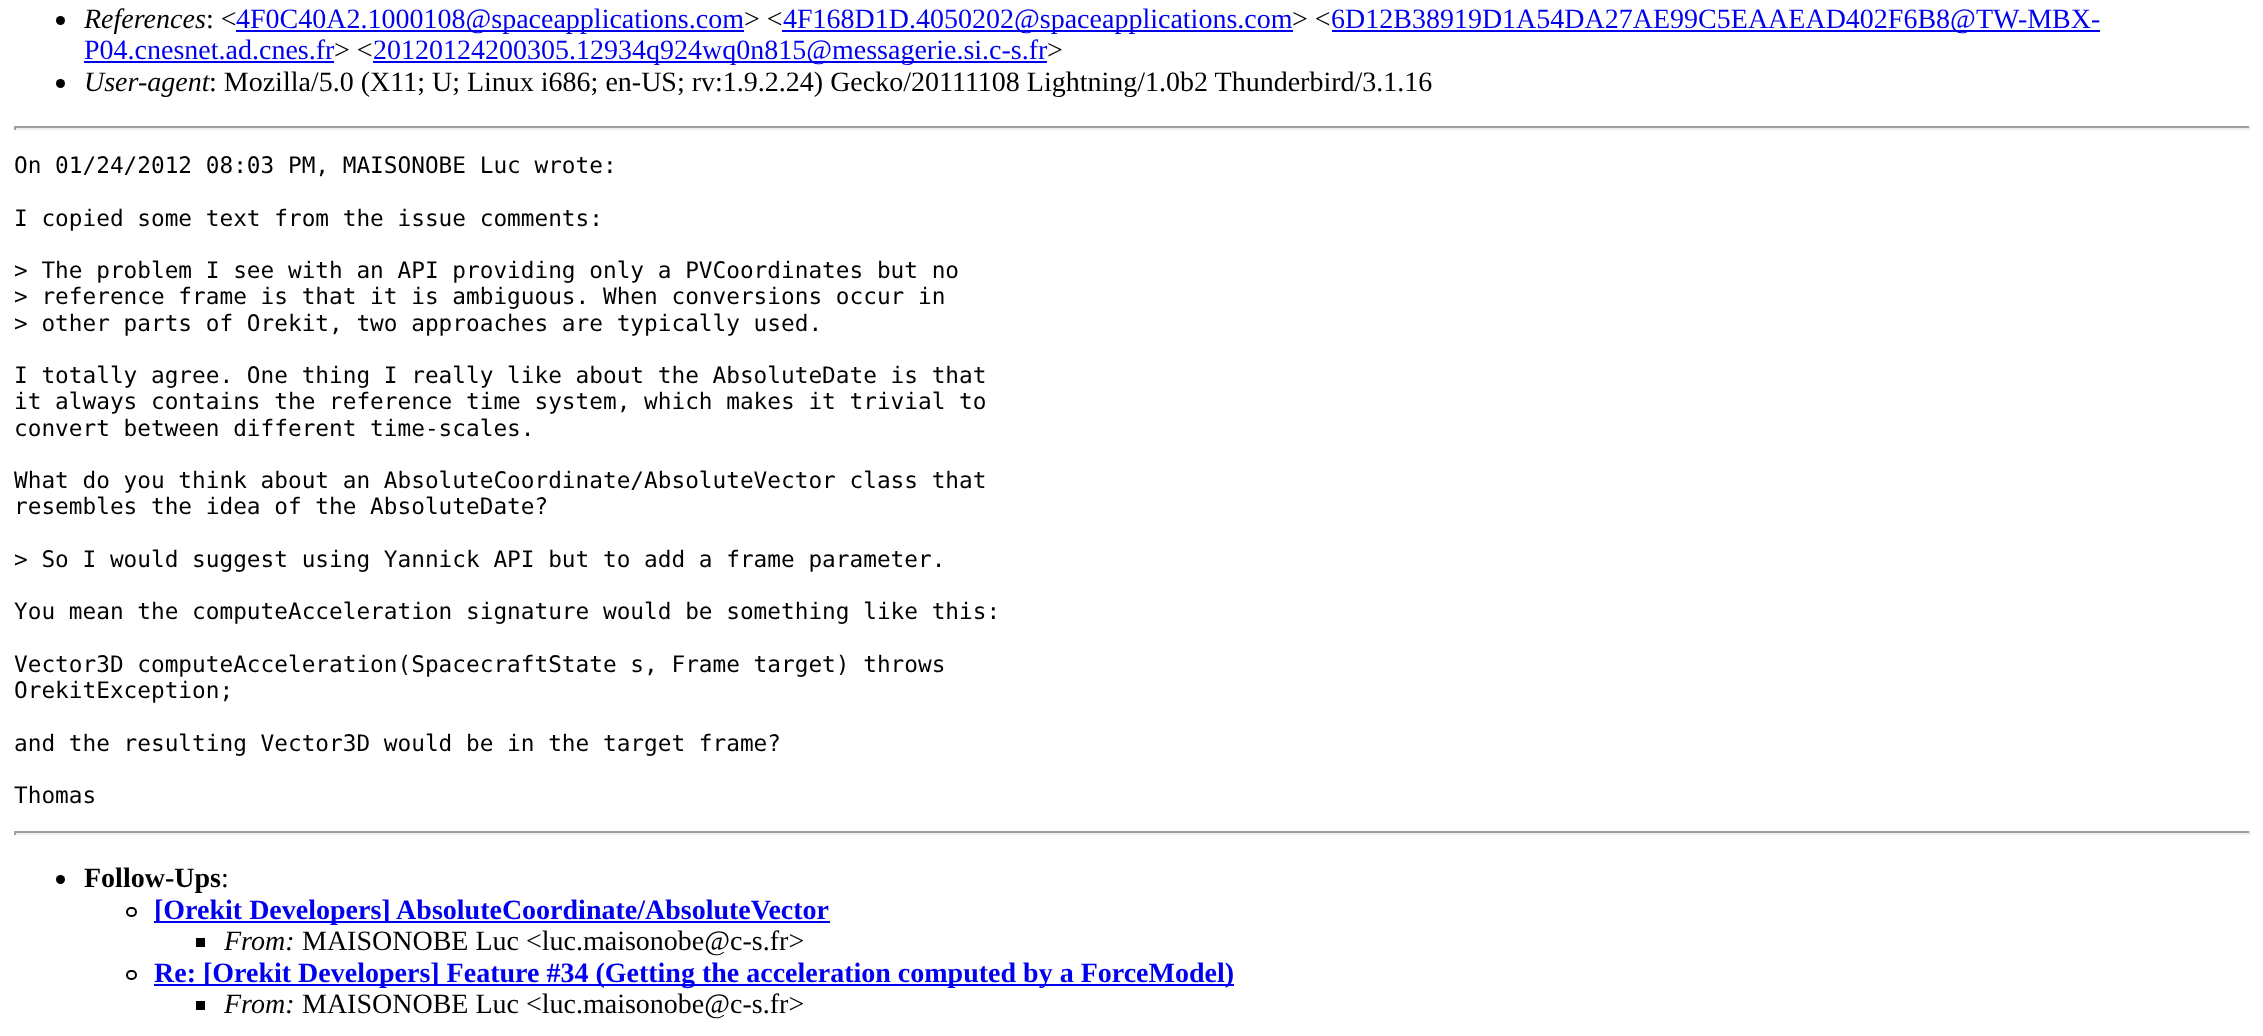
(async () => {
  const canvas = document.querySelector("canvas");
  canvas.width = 2263;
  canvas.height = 1036;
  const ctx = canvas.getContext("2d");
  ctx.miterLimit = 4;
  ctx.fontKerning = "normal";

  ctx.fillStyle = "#ffffff";
  ctx.fillRect(0, 0, 2263, 1036);
  ctx.fillStyle = "#000000";
  ctx.beginPath();
  ctx.arc(60.5, 20.5, 4.5, 0, Math.PI * 2);
  ctx.fill();
  for (const [x, y, w, h, color] of [
    [236, 30, 508, 2, "#0000ee"],
    [782, 30, 511, 2, "#0000ee"],
    [1332, 30, 768, 2, "#0000ee"],
    [84, 61, 250, 2, "#0000ee"],
    [373, 61, 674, 2, "#0000ee"],
  ]) {
    ctx.fillStyle = color;
    ctx.fillRect(x, y, w, h);
  }
  ctx.fillStyle = "#000000";
  ctx.beginPath();
  ctx.arc(60.5, 83.5, 4.5, 0, Math.PI * 2);
  ctx.fill();
  for (const [x, y, w, h, color] of [
    [14, 126, 2237, 2, "#9f9f9f"],
    [2249, 126, 2, 4, "#eeeeee"],
    [14, 128, 2237, 2, "#eeeeee"],
    [14, 126, 2, 4, "#9f9f9f"],
    [14, 831, 2237, 2, "#9f9f9f"],
    [2249, 831, 2, 4, "#eeeeee"],
    [14, 833, 2237, 2, "#eeeeee"],
    [14, 831, 2, 4, "#9f9f9f"],
  ]) {
    ctx.fillStyle = color;
    ctx.fillRect(x, y, w, h);
  }
  ctx.fillStyle = "#000000";
  ctx.beginPath();
  ctx.arc(60.5, 879.5, 4.5, 0, Math.PI * 2);
  ctx.fill();
  ctx.beginPath();
  ctx.roundRect(127, 908, 9, 8, 4);
  ctx.strokeStyle = "#000000";
  ctx.lineWidth = 2;
  ctx.stroke();
  ctx.fillStyle = "#0000ee";
  ctx.fillRect(154, 921, 676, 2);
  ctx.fillStyle = "#000000";
  ctx.fillRect(196, 938, 9, 9);
  ctx.beginPath();
  ctx.roundRect(127, 971, 9, 8, 4);
  ctx.stroke();
  ctx.fillStyle = "#0000ee";
  ctx.fillRect(154, 984, 1080, 2);
  ctx.fillStyle = "#000000";
  ctx.fillRect(196, 1001, 9, 9);
  ctx.font = "italic 28px Liberation Serif";
  ctx.fillText("References", 84, 28);
  ctx.font = "28px Liberation Serif";
  ctx.fillText(": <", 206, 28);
  ctx.fillStyle = "#0000ee";
  ctx.fillText("4F0C40A2.1000108@spaceapplications.com", 236, 28);
  ctx.fillStyle = "#000000";
  ctx.fillText("> <", 744, 28);
  ctx.fillStyle = "#0000ee";
  ctx.fillText("4F168D1D.4050202@spaceapplications.com", 783, 28);
  ctx.fillStyle = "#000000";
  ctx.fillText("> <", 1292, 28);
  ctx.fillStyle = "#0000ee";
  ctx.fillText("6D12B38919D1A54DA27AE99C5EAAEAD402F6B8@TW-MBX-", 1331, 28);
  ctx.fillText("P04.cnesnet.ad.cnes.fr", 84, 59);
  ctx.fillStyle = "#000000";
  ctx.fillText("> <", 334, 59);
  ctx.fillStyle = "#0000ee";
  ctx.fillText("20120124200305.12934q924wq0n815@messagerie.si.c-s.fr", 373, 59);
  ctx.fillStyle = "#000000";
  ctx.fillText(">", 1047, 59);
  ctx.font = "italic 28px Liberation Serif";
  ctx.fillText("User-agent", 84, 91);
  ctx.font = "28px Liberation Serif";
  ctx.fillText(": Mozilla/5.0 (X11; U; Linux i686; en-US; rv:1.9.2.24) Gecko/20111108 Lightning/1.0b2 Thunderbird/3.1.16", 209, 91);
  ctx.font = "22.75px DejaVu Sans Mono";
  for (const [text, x, y] of [
    ["On 01/24/2012 08:03 PM, MAISONOBE Luc wrote:", 14, 173],
    ["I copied some text from the issue comments:", 14, 226],
    ["> The problem I see with an API providing only a PVCoordinates but no", 14, 278],
    ["> reference frame is that it is ambiguous. When conversions occur in", 14, 304],
    ["> other parts of Orekit, two approaches are typically used.", 14, 331],
    ["I totally agree. One thing I really like about the AbsoluteDate is that", 14, 383],
    ["it always contains the reference time system, which makes it trivial to", 14, 409],
    ["convert between different time-scales.", 14, 436],
    ["What do you think about an AbsoluteCoordinate/AbsoluteVector class that", 14, 488],
    ["resembles the idea of the AbsoluteDate?", 14, 514],
    ["> So I would suggest using Yannick API but to add a frame parameter.", 14, 567],
    ["You mean the computeAcceleration signature would be something like this:", 14, 619],
    ["Vector3D computeAcceleration(SpacecraftState s, Frame target) throws", 14, 672],
    ["OrekitException;", 14, 698],
    ["and the resulting Vector3D would be in the target frame?", 14, 751],
    ["Thomas", 14, 803],
  ]) {
    ctx.fillText(text, x, y);
  }
  ctx.font = "bold 28px Liberation Serif";
  ctx.fillText("Follow-Ups", 84, 887);
  ctx.font = "28px Liberation Serif";
  ctx.fillText(":", 221, 887);
  ctx.font = "bold 28px Liberation Serif";
  ctx.fillStyle = "#0000ee";
  ctx.fillText("[Orekit Developers] AbsoluteCoordinate/AbsoluteVector", 154, 919);
  ctx.font = "italic 28px Liberation Serif";
  ctx.fillStyle = "#000000";
  ctx.fillText("From:", 224, 950);
  ctx.font = "28px Liberation Serif";
  ctx.fillText("MAISONOBE Luc <luc.maisonobe@c-s.fr>", 302, 950);
  ctx.font = "bold 28px Liberation Serif";
  ctx.fillStyle = "#0000ee";
  ctx.fillText("Re: [Orekit Developers] Feature #34 (Getting the acceleration computed by a ForceModel)", 154, 982);
  ctx.font = "italic 28px Liberation Serif";
  ctx.fillStyle = "#000000";
  ctx.fillText("From:", 224, 1013);
  ctx.font = "28px Liberation Serif";
  ctx.fillText("MAISONOBE Luc <luc.maisonobe@c-s.fr>", 302, 1013);
})();
